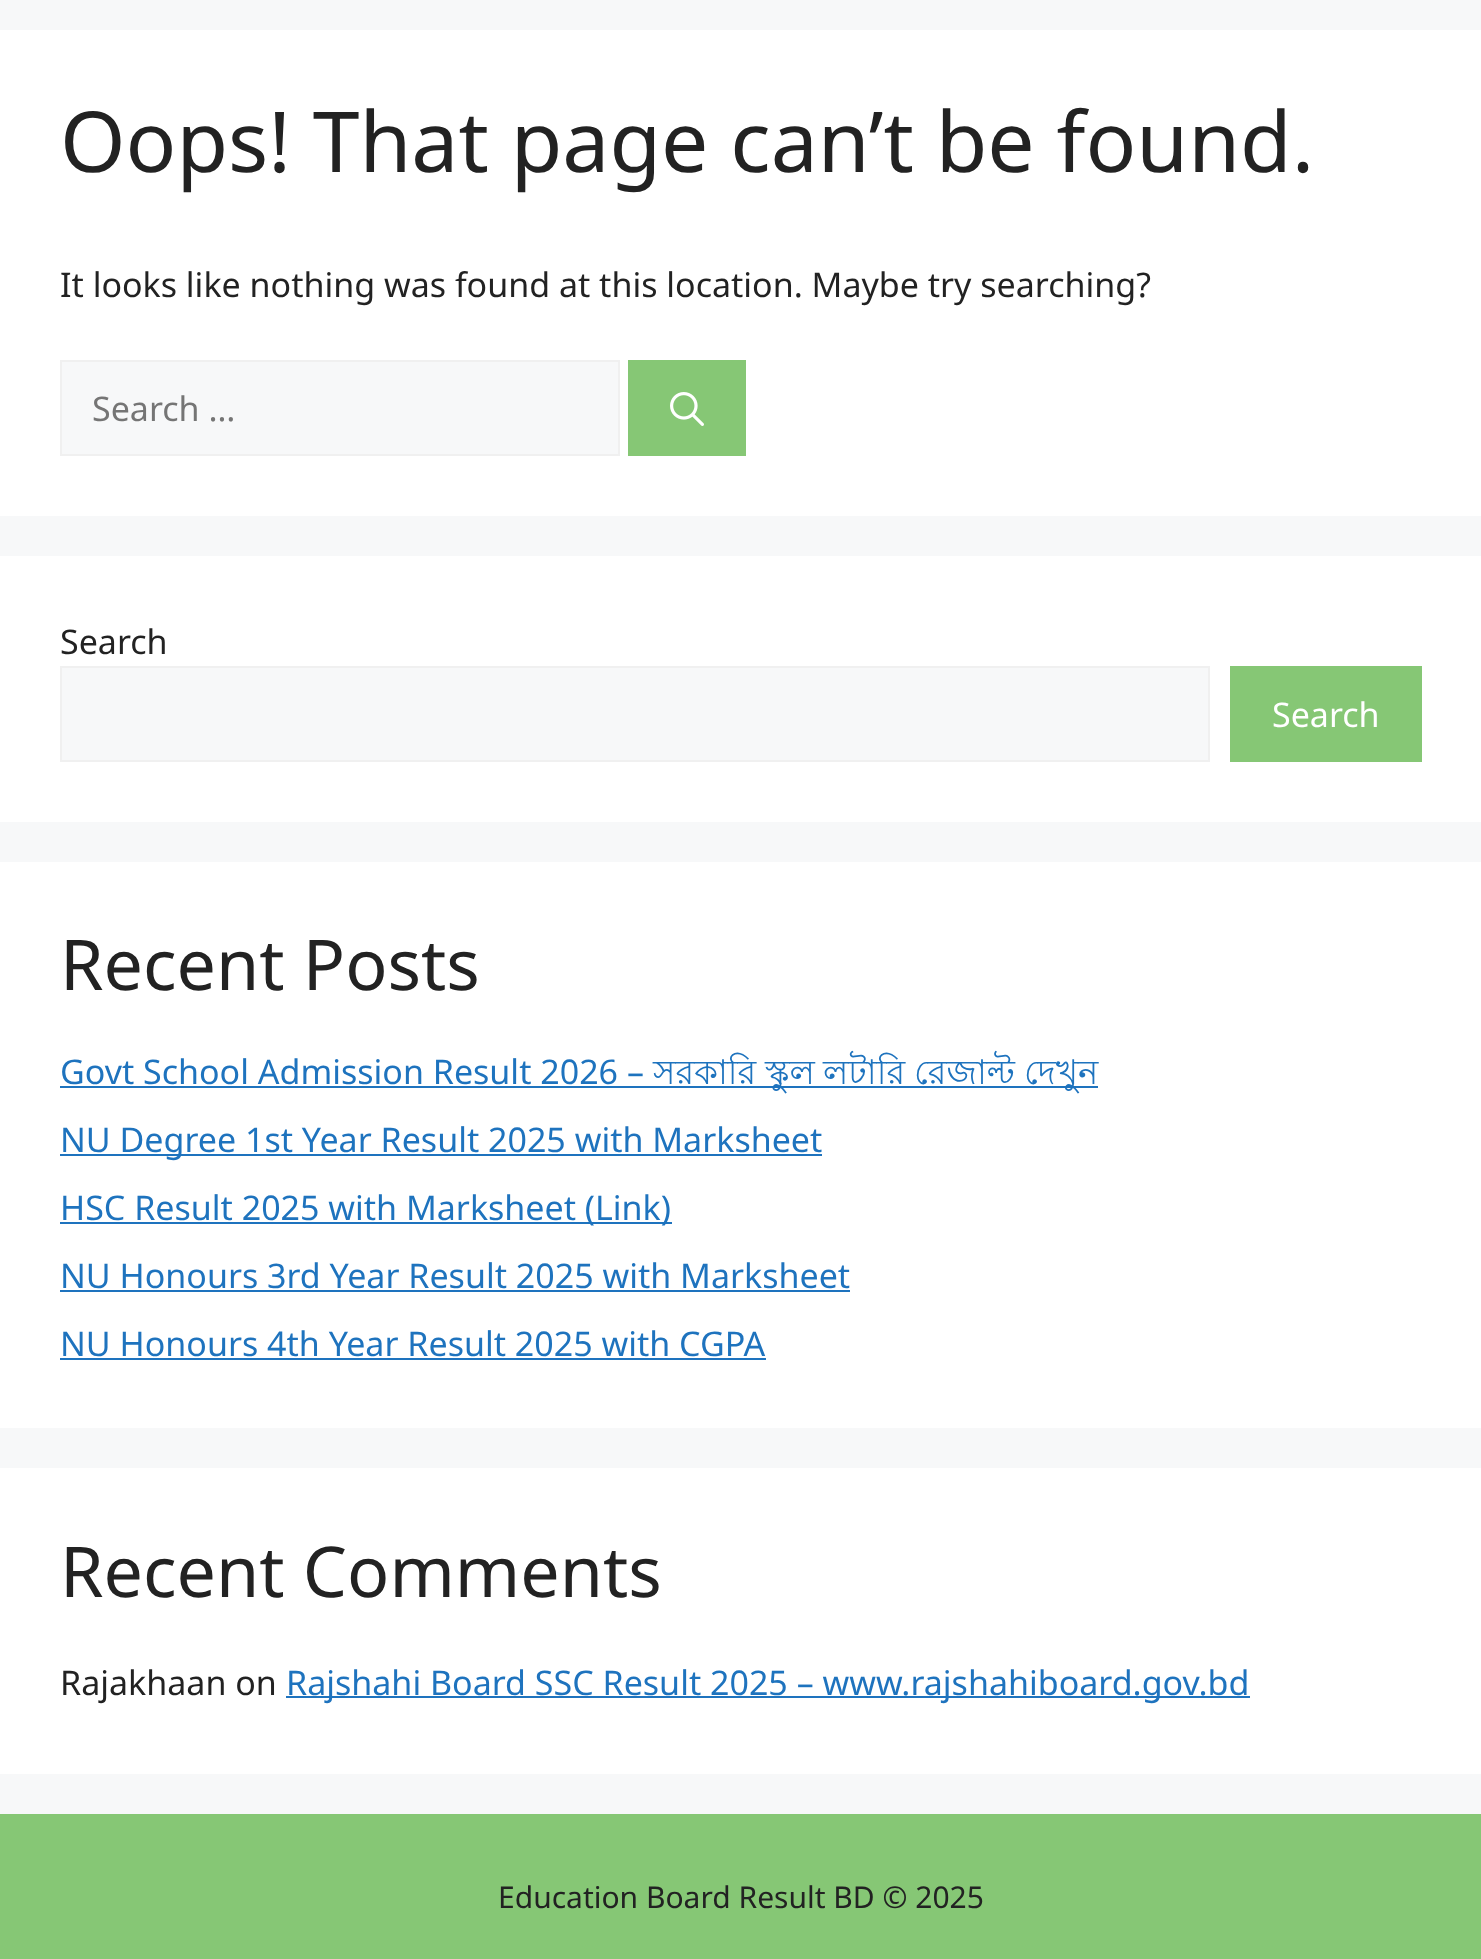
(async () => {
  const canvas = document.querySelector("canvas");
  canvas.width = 1481;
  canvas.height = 1959;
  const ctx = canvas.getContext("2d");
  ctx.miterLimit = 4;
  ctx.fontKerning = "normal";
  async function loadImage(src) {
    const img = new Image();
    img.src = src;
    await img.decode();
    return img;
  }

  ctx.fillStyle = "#f7f8f9";
  ctx.fillRect(0, 0, 1481, 1959);
  ctx.fillStyle = "#ffffff";
  ctx.fillRect(0, 30, 1481, 486);
  ctx.fillStyle = "#f7f8f9";
  ctx.beginPath();
  ctx.rect(61, 361, 558, 94);
  ctx.fill();
  ctx.strokeStyle = "#f0f0f0";
  ctx.lineWidth = 2;
  ctx.stroke();
  ctx.fillStyle = "#86c775";
  ctx.fillRect(628, 360, 118, 96);
  ctx.drawImage(await loadImage("img/1.png"), 670, 392, 34, 34);
  ctx.fillStyle = "#ffffff";
  ctx.fillRect(0, 556, 1481, 266);
  ctx.fillStyle = "#f7f8f9";
  ctx.beginPath();
  ctx.rect(61, 667, 1148, 94);
  ctx.fill();
  ctx.stroke();
  for (const [x, y, w, h, color] of [
    [1230, 666, 192, 96, "#86c775"],
    [0, 862, 1481, 566, "#ffffff"],
    [60, 1086, 1038, 2, "#1e73be"],
    [60, 1154, 762, 2, "#1e73be"],
    [60, 1222, 612, 2, "#1e73be"],
    [60, 1290, 790, 2, "#1e73be"],
    [60, 1358, 706, 2, "#1e73be"],
    [0, 1468, 1481, 306, "#ffffff"],
    [286, 1696, 964, 2, "#1e73be"],
    [0, 1814, 1481, 145, "#86c775"],
  ]) {
    ctx.fillStyle = color;
    ctx.fillRect(x, y, w, h);
  }
  ctx.font = "84px Noto Sans";
  ctx.fillStyle = "#222222";
  ctx.fillText("Oops! That page can’t be found.", 60, 172);
  ctx.font = "34px Noto Sans";
  ctx.fillText("It looks like nothing was found at this location. Maybe try searching?", 60, 297);
  ctx.fillStyle = "#757575";
  ctx.fillText("Search …", 92, 421);
  ctx.fillStyle = "#222222";
  ctx.fillText("Search", 60, 654);
  ctx.fillStyle = "#ffffff";
  ctx.fillText("Search", 1272, 727);
  ctx.font = "70px Noto Sans";
  ctx.fillStyle = "#222222";
  ctx.fillText("Recent Posts", 60, 990);
  ctx.font = "34px Noto Sans";
  ctx.fillStyle = "#1e73be";
  ctx.fillText("Govt School Admission Result 2026 –", 60, 1084);
  ctx.font = "34px Lohit Bengali";
  for (const [text, x, y] of [
    ["সরকারি", 653, 1084],
    ["স্কুল", 765, 1084],
    ["লটারি", 823, 1084],
    ["রেজাল্ট", 914, 1084],
    ["দেখুন", 1024, 1084],
  ]) {
    ctx.fillText(text, x, y);
  }
  ctx.font = "34px Noto Sans";
  for (const [text, x, y] of [
    ["NU Degree 1st Year Result 2025 with Marksheet", 60, 1152],
    ["HSC Result 2025 with Marksheet (Link)", 60, 1220],
    ["NU Honours 3rd Year Result 2025 with Marksheet", 60, 1288],
    ["NU Honours 4th Year Result 2025 with CGPA", 60, 1356],
  ]) {
    ctx.fillText(text, x, y);
  }
  ctx.font = "70px Noto Sans";
  ctx.fillStyle = "#222222";
  ctx.fillText("Recent Comments", 60, 1597);
  ctx.font = "34px Noto Sans";
  ctx.fillText("Rajakhaan on", 60, 1695);
  ctx.fillStyle = "#1e73be";
  ctx.fillText("Rajshahi Board SSC Result 2025 – www.rajshahiboard.gov.bd", 286, 1695);
  ctx.font = "30px Noto Sans";
  ctx.fillStyle = "#222222";
  ctx.fillText("Education Board Result BD © 2025", 498, 1908);
})();
